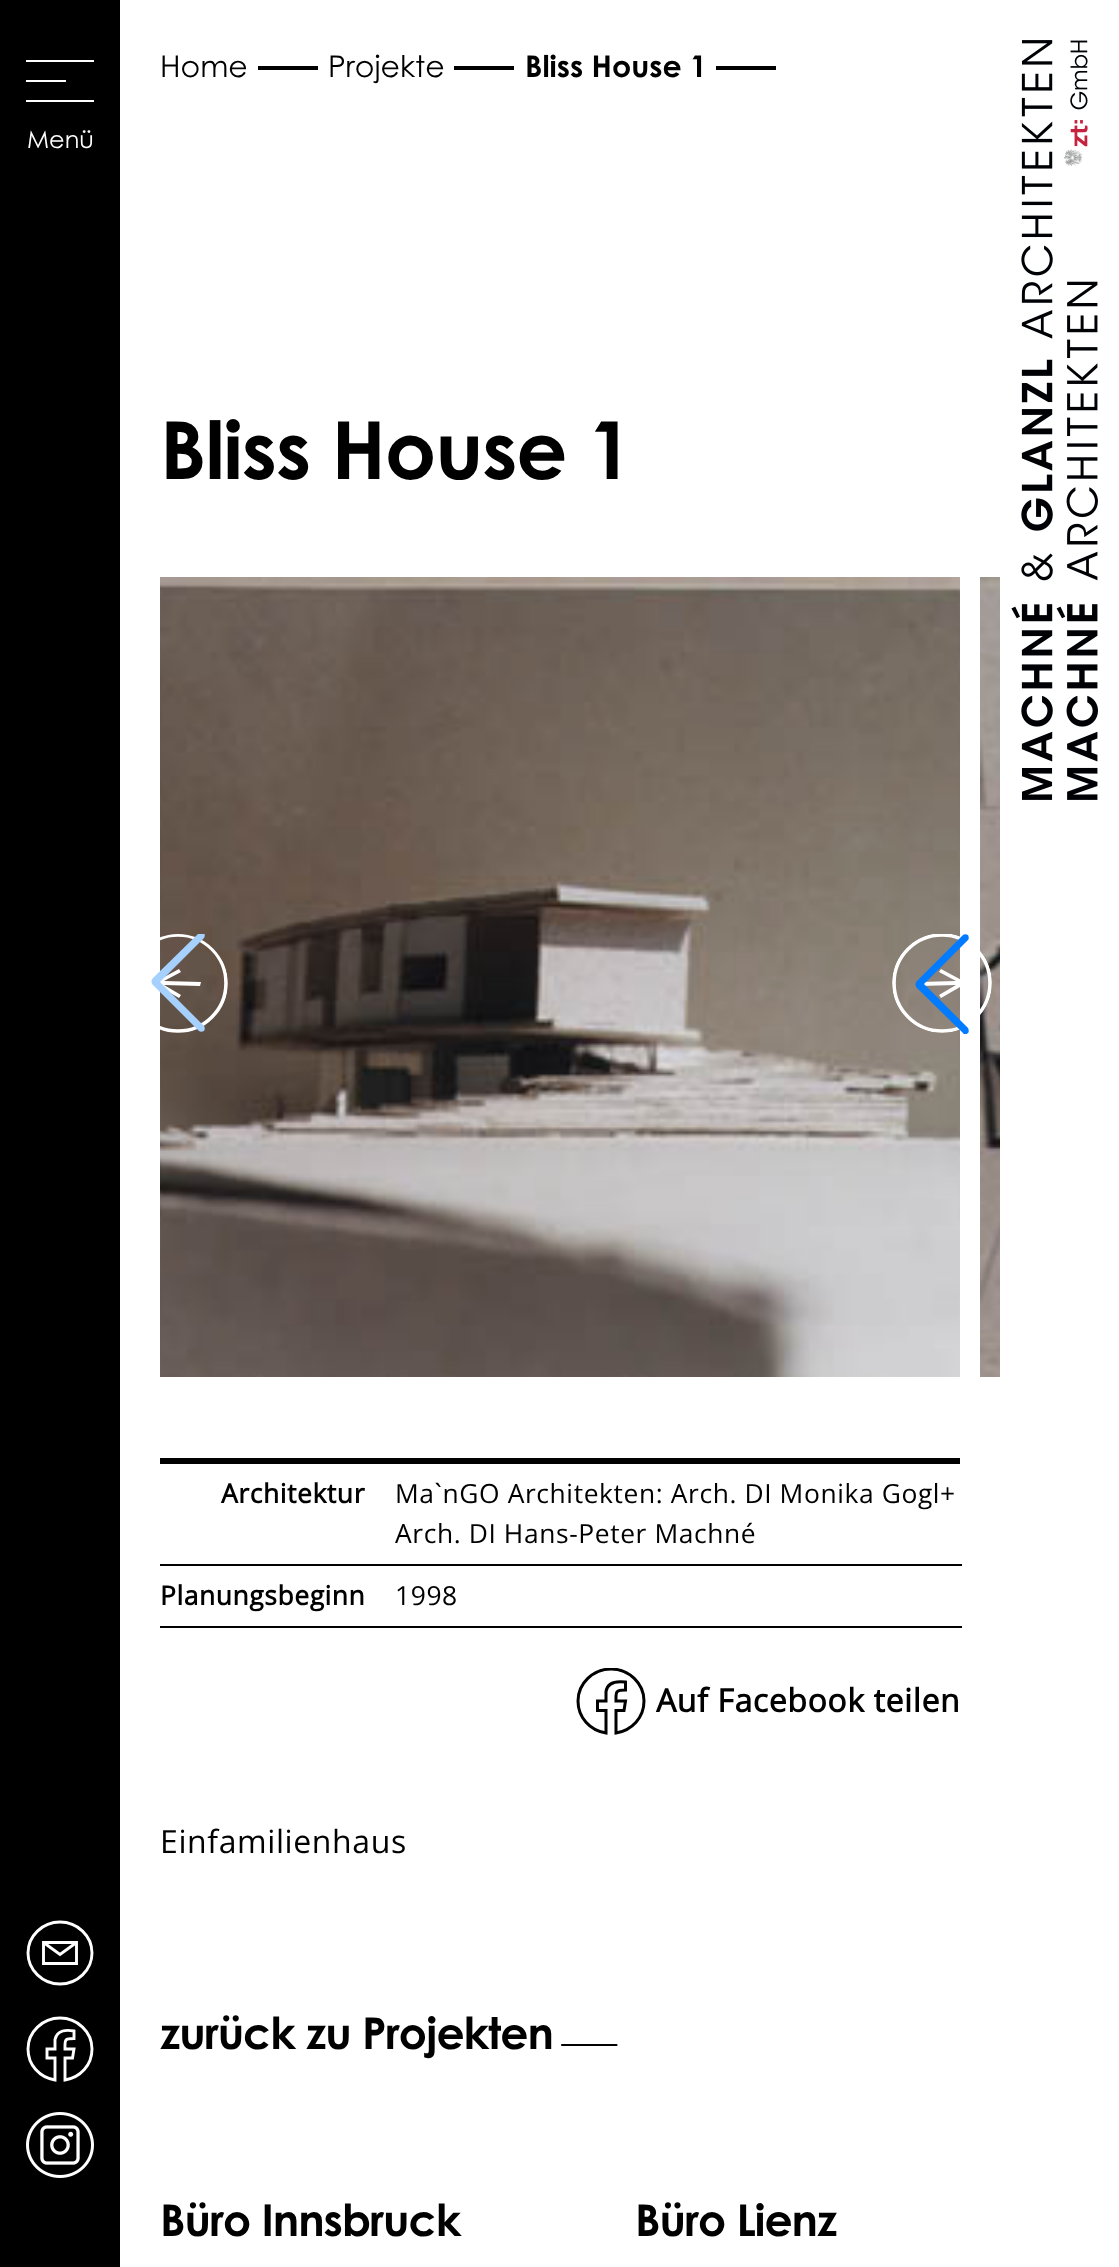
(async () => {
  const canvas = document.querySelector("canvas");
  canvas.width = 1119;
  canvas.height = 2267;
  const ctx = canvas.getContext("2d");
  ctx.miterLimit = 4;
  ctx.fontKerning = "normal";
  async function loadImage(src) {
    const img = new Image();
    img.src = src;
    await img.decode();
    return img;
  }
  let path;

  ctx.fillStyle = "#ffffff";
  ctx.fillRect(0, 0, 1119, 2267);
  for (const [x, y, w, h, color] of [
    [258, 66, 60, 4, "#010101"],
    [454, 66, 60, 4, "#010101"],
    [716, 66, 60, 4, "#010101"],
    [0, 0, 120, 2267, "#000000"],
    [26, 60, 68, 2, "#ffffff"],
    [26, 80, 40, 2, "#ffffff"],
    [26, 100, 68, 2, "#ffffff"],
  ]) {
    ctx.fillStyle = color;
    ctx.fillRect(x, y, w, h);
  }
  path = new Path2D("M92 1953C92 1970 77.5 1984 60 1984C42.5 1984 28 1970 28 1953C28 1936 42.5 1922 60 1922C77.5 1922 92 1936 92 1953Z");
  ctx.strokeStyle = "#ffffff";
  ctx.lineWidth = 2.9;
  ctx.stroke(path);
  path = new Path2D("M43.5 1963.5H76.5V1942.5H43.5ZM76.5 1942.5L60 1954.5L43.5 1942.5");
  ctx.stroke(path);
  path = new Path2D("M92 2049C92 2032 77.5 2018 60 2018C42.5 2018 28 2032 28 2049C28 2065 39.5 2077.5 55 2080V2058H47V2049H55V2039.5C57 2030 66.5 2029.5 74 2031V2038.5C64 2038.5 65 2040 65 2049H74L72.5 2058H65V2080C80.5 2077.5 92 2065 92 2049Z");
  ctx.stroke(path);
  ctx.drawImage(await loadImage("img/1.png"), 26, 2112, 68, 66);
  ctx.drawImage(await loadImage("img/2.png"), 1011, 40, 87, 760);
  ctx.drawImage(await loadImage("img/3.png"), 160, 577, 800, 800);
  ctx.drawImage(await loadImage("img/4.png"), 980, 577, 20, 800);
  ctx.save();
  ctx.beginPath();
  ctx.roundRect(128, 934, 100, 100, 50);
  ctx.clip();
  path = new Path2D("M178 1031C151.5 1031 130 1009.5 130 983C130 956.5 151.5 935 178 935C204.5 935 226 956.5 226 983C226 1009.5 204.5 1031 178 1031Z");
  ctx.lineWidth = 3.6;
  ctx.stroke(path);
  ctx.restore();
  path = new Path2D("M179 998L153 983L179 969L181 972L164 981L201 982L200 986L164 985L181 995Z");
  ctx.fill(path);
  ctx.save();
  ctx.beginPath();
  ctx.rect(128, 934, 100, 100);
  ctx.clip();
  ctx.fillStyle = "#a6d1ff";
  path = new Path2D("M204 933C205 934 205 936 204 938L160 982L204 1026C205 1027 205 1029 204 1031C202 1032 200 1032 199 1031L153 985C151 983 151 980 153 978L199 933C200 931 202 931 204 933Z");
  ctx.fill(path);
  ctx.restore();
  ctx.save();
  ctx.beginPath();
  ctx.rect(892, 934, 100, 100);
  ctx.clip();
  path = new Path2D("M942 933C914.5 933 892 955.5 892 983C892 1010.5 914.5 1033 942 1033C969.5 1033 992 1010.5 992 983C992 955.5 969.5 933 942 933Z");
  ctx.clip(path);
  path = new Path2D("M942 1031C968.5 1031 990 1009.5 990 983C990 956.5 968.5 935 942 935C915.5 935 894 956.5 894 983C894 1009.5 915.5 1031 942 1031Z");
  ctx.lineWidth = 3.6;
  ctx.stroke(path);
  ctx.restore();
  path = new Path2D("M941 998L967 983L941 969L939 972L956 981L919 982L920 986L956 985L939 995Z");
  ctx.fill(path);
  ctx.save();
  ctx.beginPath();
  ctx.rect(892, 934, 100, 100);
  ctx.clip();
  ctx.fillStyle = "#017bff";
  path = new Path2D("M968 1033C969 1032 969 1030 968 1028L924 984L968 940C969 939 969 937 968 935C966 934 964 934 963 935L917 981C915 983 915 986 917 988L963 1033C964 1035 966 1035 968 1033Z");
  ctx.fill(path);
  ctx.restore();
  for (const [x, y, w, h, color] of [
    [160, 1458, 800, 6, "#010101"],
    [160, 1564, 802, 2, "#010101"],
    [160, 1626, 802, 2, "#010101"],
  ]) {
    ctx.fillStyle = color;
    ctx.fillRect(x, y, w, h);
  }
  ctx.save();
  ctx.beginPath();
  ctx.rect(576, 1668, 70, 68);
  ctx.clip();
  path = new Path2D("M644 1701C644 1683.5 629 1669 611 1669C593 1669 578 1683.5 578 1701C578 1717.5 590 1730.5 606 1733V1710.5H597.5V1701H606V1691.5C607.5 1681.5 617.5 1681 625.5 1682V1690C615 1690 616 1692 616 1701H625.5L624 1710.5H616V1733C632 1730.5 644 1717.5 644 1701Z");
  ctx.strokeStyle = "#010101";
  ctx.lineWidth = 3;
  ctx.stroke(path);
  ctx.restore();
  path = new Path2D("M616.5 2045H562M616.5 2045H562");
  ctx.strokeStyle = "#010101";
  ctx.lineWidth = 2.2;
  ctx.lineCap = "round";
  ctx.lineJoin = "bevel";
  ctx.stroke(path);
  ctx.font = "30px Century Gothic";
  ctx.fillStyle = "#000000";
  ctx.fillText("Home", 160, 77);
  ctx.fillText("Projekte", 328, 77);
  ctx.font = "bold 30px Century Gothic";
  ctx.fillText("Bliss House 1", 525, 77);
  ctx.font = "24px Century Gothic";
  ctx.fillStyle = "#ffffff";
  ctx.fillText("Menü", 27, 148);
  ctx.letterSpacing = "-1px";
  ctx.font = "bold 80px Century Gothic";
  ctx.fillStyle = "#000000";
  ctx.fillText("Bliss House 1", 160, 479);
  ctx.letterSpacing = "0.6px";
  ctx.font = "bold 26.4px Open Sans";
  ctx.fillText("Architektur", 221, 1503);
  ctx.font = "26.4px Open Sans";
  ctx.fillText("Ma`nGO Architekten: Arch. DI Monika Gogl+", 395, 1503);
  ctx.fillText("Arch. DI Hans-Peter Machné", 395, 1543);
  ctx.font = "bold 26.4px Open Sans";
  ctx.fillText("Planungsbeginn", 160, 1605);
  ctx.font = "26.4px Open Sans";
  ctx.fillText("1998", 395, 1605);
  ctx.font = "bold 32px Open Sans";
  ctx.fillText("Auf Facebook teilen", 656, 1712);
  ctx.font = "32px Open Sans";
  ctx.fillText("Einfamilienhaus", 160, 1853);
  ctx.letterSpacing = "-1px";
  ctx.font = "bold 44px Century Gothic";
  for (const [text, x, y] of [
    ["zurück zu Projekten", 160, 2049],
    ["Büro Innsbruck", 160, 2236],
    ["Büro Lienz", 635, 2236],
  ]) {
    ctx.fillText(text, x, y);
  }
})();
